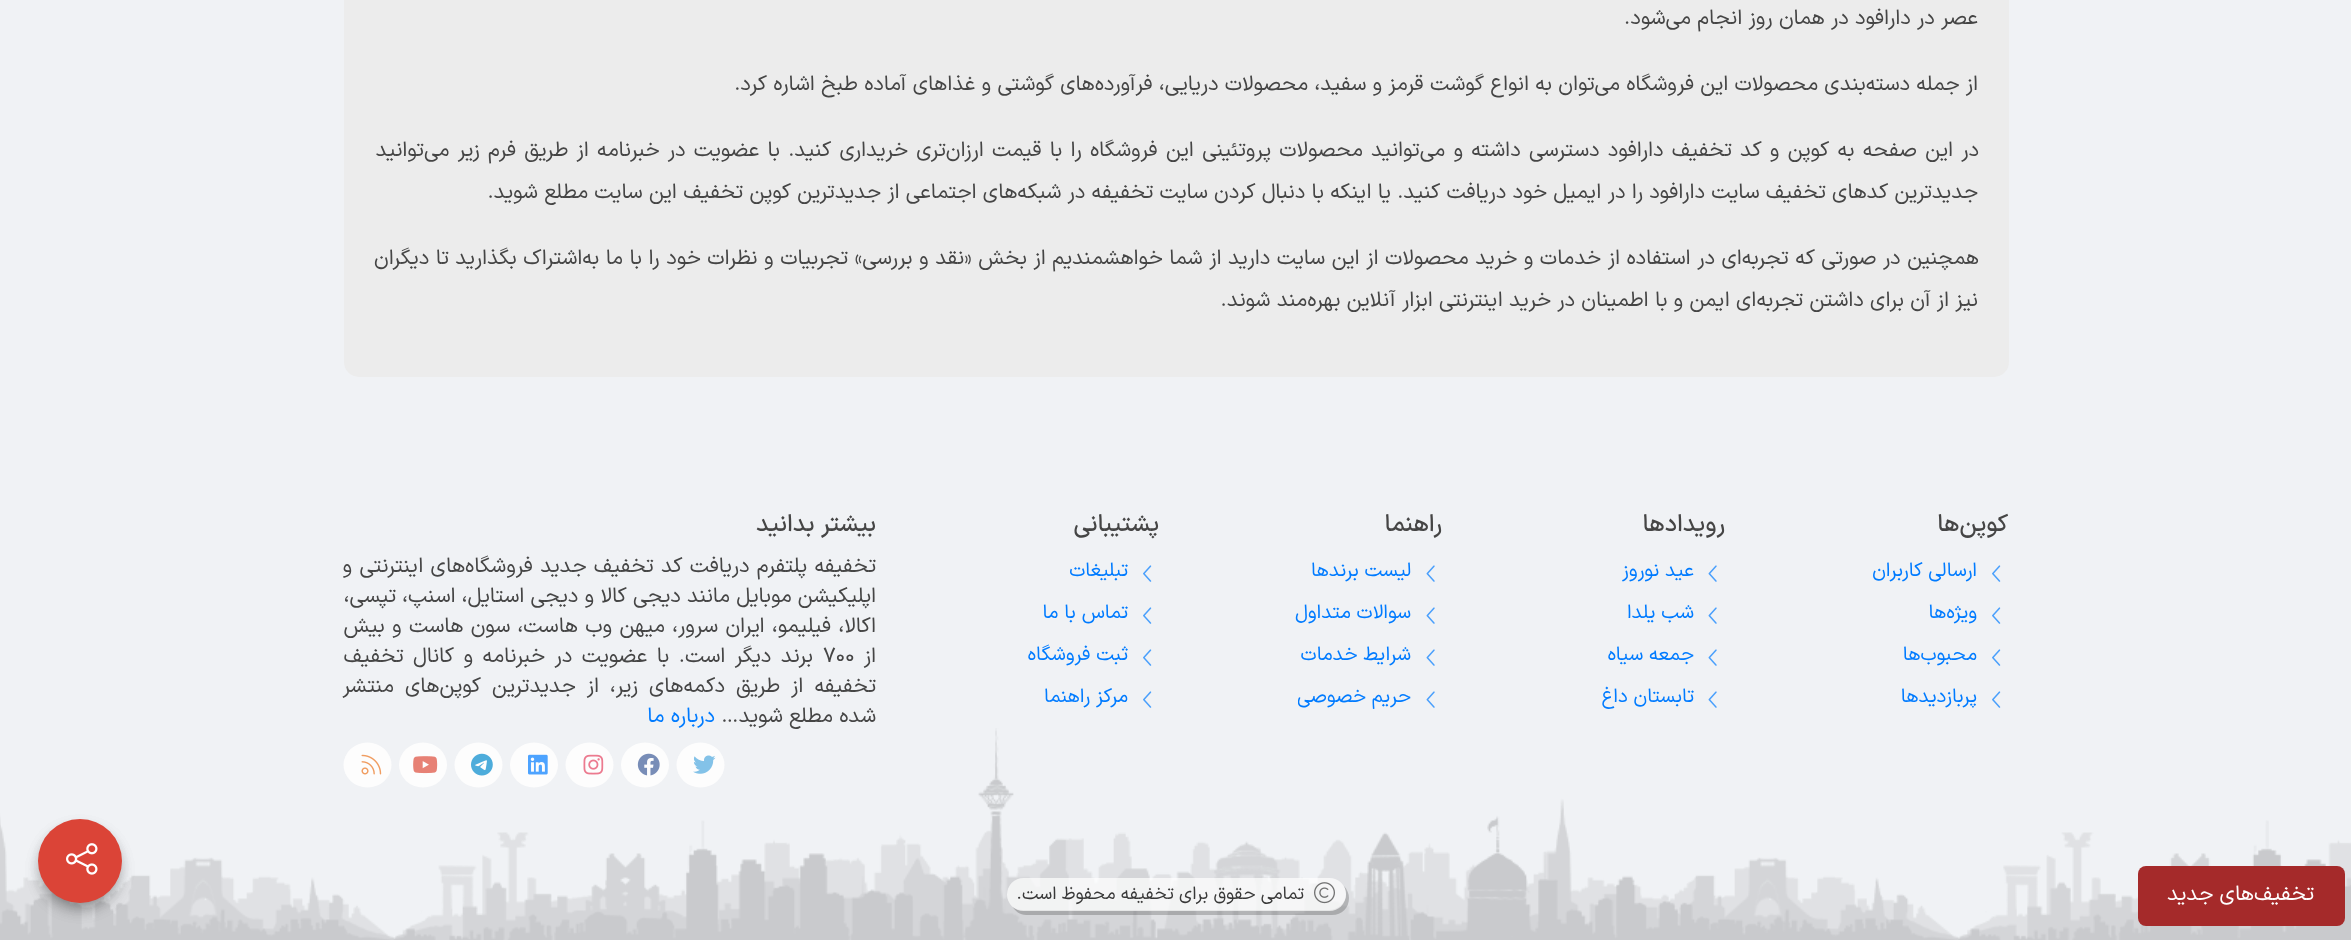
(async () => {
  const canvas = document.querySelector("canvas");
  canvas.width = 2351;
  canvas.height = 940;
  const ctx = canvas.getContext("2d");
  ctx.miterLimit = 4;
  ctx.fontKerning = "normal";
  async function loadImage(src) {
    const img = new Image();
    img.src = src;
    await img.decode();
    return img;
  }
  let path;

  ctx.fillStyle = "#f0f2f5";
  ctx.fillRect(0, 0, 2351, 940);
  ctx.fillStyle = "#ececec";
  ctx.beginPath();
  ctx.roundRect(344, -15, 1665, 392, 15);
  ctx.fill();
  ctx.drawImage(await loadImage("img/1.png"), 0, 728, 2351, 212);
  ctx.drawImage(await loadImage("img/2.png"), 1992, 565, 9, 17);
  ctx.drawImage(await loadImage("img/2.png"), 1992, 607, 9, 17);
  ctx.drawImage(await loadImage("img/2.png"), 1992, 649, 9, 17);
  ctx.drawImage(await loadImage("img/2.png"), 1992, 691, 9, 17);
  ctx.drawImage(await loadImage("img/3.png"), 1708, 565, 9, 17);
  ctx.drawImage(await loadImage("img/3.png"), 1708, 607, 9, 17);
  ctx.drawImage(await loadImage("img/3.png"), 1708, 649, 9, 17);
  ctx.drawImage(await loadImage("img/3.png"), 1708, 691, 9, 17);
  ctx.drawImage(await loadImage("img/3.png"), 1426, 565, 9, 17);
  ctx.drawImage(await loadImage("img/3.png"), 1426, 607, 9, 17);
  ctx.drawImage(await loadImage("img/3.png"), 1426, 649, 9, 17);
  ctx.drawImage(await loadImage("img/3.png"), 1426, 691, 9, 17);
  ctx.drawImage(await loadImage("img/2.png"), 1143, 565, 9, 17);
  ctx.drawImage(await loadImage("img/2.png"), 1143, 607, 9, 17);
  ctx.drawImage(await loadImage("img/2.png"), 1143, 649, 9, 17);
  ctx.drawImage(await loadImage("img/2.png"), 1143, 691, 9, 17);
  ctx.fillStyle = "#fdfdfd";
  ctx.beginPath();
  ctx.ellipse(700.5, 765, 24, 22.5, 0, 0, Math.PI * 2);
  ctx.fill();
  ctx.drawImage(await loadImage("img/4.png"), 693, 755, 23, 19);
  ctx.beginPath();
  ctx.ellipse(645, 765, 24, 22.5, 0, 0, Math.PI * 2);
  ctx.fill();
  ctx.drawImage(await loadImage("img/5.png"), 637, 753, 23, 23);
  ctx.beginPath();
  ctx.ellipse(589.5, 765, 24, 22.5, 0, 0, Math.PI * 2);
  ctx.fill();
  ctx.drawImage(await loadImage("img/6.png"), 583, 754, 21, 21);
  ctx.beginPath();
  ctx.ellipse(534, 765, 24, 22.5, 0, 0, Math.PI * 2);
  ctx.fill();
  ctx.drawImage(await loadImage("img/7.png"), 528, 754, 20, 21);
  ctx.beginPath();
  ctx.ellipse(478.5, 765, 24, 22.5, 0, 0, Math.PI * 2);
  ctx.fill();
  ctx.drawImage(await loadImage("img/8.png"), 471, 753, 22, 23);
  ctx.beginPath();
  ctx.ellipse(423, 765, 24, 22.5, 0, 0, Math.PI * 2);
  ctx.fill();
  ctx.drawImage(await loadImage("img/9.png"), 413, 756, 25, 18);
  ctx.beginPath();
  ctx.ellipse(367.5, 765, 24, 22.5, 0, 0, Math.PI * 2);
  ctx.fill();
  ctx.drawImage(await loadImage("img/10.png"), 361, 754, 21, 21);
  ctx.fillStyle = "#a52a2a";
  ctx.beginPath();
  ctx.roundRect(2138, 866, 207, 60, 8);
  ctx.fill();
  ctx.fillStyle = "rgba(0, 0, 0, 0.2)";
  path = new Path2D("M1012 906C1015 911 1020 915 1026 915H1332C1342 915 1349 908 1349 898C1349 894 1347 889 1344 886C1345 889 1346 891 1346 894C1346 903 1338 910 1329 910H1023C1019 910 1015 909 1012 906Z");
  ctx.fill(path);
  ctx.fillStyle = "rgba(255, 255, 255, 0.7)";
  ctx.beginPath();
  ctx.roundRect(1007, 878, 339, 33, 16.5);
  ctx.fill();
  ctx.drawImage(await loadImage("img/11.png"), 1314, 882, 21, 22);
  ctx.fillStyle = "rgba(0, 0, 0, 0.15)";
  ctx.filter = "blur(9px)";
  ctx.beginPath();
  ctx.roundRect(48, 836, 63, 63, 31.5);
  ctx.fill();
  ctx.filter = "none";
  ctx.fillStyle = "rgba(0, 0, 0, 0.18)";
  ctx.filter = "blur(8px)";
  ctx.beginPath();
  ctx.roundRect(41, 830, 78, 78, 39);
  ctx.fill();
  ctx.filter = "none";
  ctx.fillStyle = "rgba(0, 0, 0, 0.15)";
  ctx.filter = "blur(9px)";
  ctx.beginPath();
  ctx.roundRect(48, 836, 63, 63, 31.5);
  ctx.fill();
  ctx.filter = "none";
  ctx.fillStyle = "rgba(0, 0, 0, 0.18)";
  ctx.filter = "blur(8px)";
  ctx.beginPath();
  ctx.roundRect(41, 830, 78, 78, 39);
  ctx.fill();
  ctx.filter = "none";
  ctx.fillStyle = "#db4437";
  ctx.beginPath();
  ctx.arc(80, 861, 42, 0, Math.PI * 2);
  ctx.fill();
  ctx.drawImage(await loadImage("img/12.png"), 66, 843, 32, 32);
  ctx.direction = "rtl";
  ctx.font = "21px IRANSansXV";
  ctx.fillStyle = "#454545";
  ctx.fillText("عصر در دارافود در همان روز انجام می‌شود.", 1978, 24);
  ctx.fillText("از جمله دسته‌بندی محصولات این فروشگاه می‌توان به انواع گوشت قرمز و سفید، محصولات دریایی، فرآورده‌های گوشتی و غذاهای آماده طبخ اشاره کرد.", 1978, 90);
  ctx.wordSpacing = "2px";
  ctx.fillText("در این صفحه به کوپن و کد تخفیف دارافود دسترسی داشته و می‌توانید محصولات پروتئینی این فروشگاه را با قیمت ارزان‌تری خریداری کنید. با عضویت در خبرنامه از طریق فرم زیر می‌توانید", 1979, 156);
  ctx.wordSpacing = "0px";
  ctx.fillText("جدیدترین کدهای تخفیف سایت دارافود را در ایمیل خود دریافت کنید. یا اینکه با دنبال کردن سایت تخفیفه در شبکه‌های اجتماعی از جدیدترین کوپن تخفیف این سایت مطلع شوید.", 1978, 198);
  ctx.wordSpacing = "0.3px";
  ctx.fillText("همچنین در صورتی که تجربه‌ای در استفاده از خدمات و خرید محصولات از این سایت دارید از شما خواهشمندیم از بخش «نقد و بررسی» تجربیات و نظرات خود را با ما به‌اشتراک بگذارید تا دیگران", 1979, 264);
  ctx.wordSpacing = "0px";
  ctx.fillText("نیز از آن برای داشتن تجربه‌ای ایمن و با اطمینان در خرید اینترنتی ابزار آنلاین بهره‌مند شوند.", 1978, 306);
  ctx.font = "500 24px IRANSansXV";
  ctx.fillText("کوپن‌ها", 2008, 531);
  ctx.font = "19.5px IRANSansXV";
  ctx.fillStyle = "#007bff";
  for (const [text, x, y] of [
    ["ارسالی کاربران", 1977, 576],
    ["ویژه‌ها", 1977, 618],
    ["محبوب‌ها", 1977, 660],
    ["پربازدیدها", 1977, 702],
  ]) {
    ctx.fillText(text, x, y);
  }
  ctx.font = "500 24px IRANSansXV";
  ctx.fillStyle = "#454545";
  ctx.fillText("رویدادها", 1725, 531);
  ctx.font = "19.5px IRANSansXV";
  ctx.fillStyle = "#007bff";
  for (const [text, x, y] of [
    ["عید نوروز", 1694, 576],
    ["شب یلدا", 1694, 618],
    ["جمعه سیاه", 1694, 660],
    ["تابستان داغ", 1694, 702],
  ]) {
    ctx.fillText(text, x, y);
  }
  ctx.font = "500 24px IRANSansXV";
  ctx.fillStyle = "#454545";
  ctx.fillText("راهنما", 1442, 531);
  ctx.font = "19.5px IRANSansXV";
  ctx.fillStyle = "#007bff";
  for (const [text, x, y] of [
    ["لیست برندها", 1411, 576],
    ["سوالات متداول", 1411, 618],
    ["شرایط خدمات", 1411, 660],
  ]) {
    ctx.fillText(text, x, y);
  }
  ctx.save();
  ctx.beginPath();
  ctx.rect(1298, 678, 145, 42);
  ctx.clip();
  ctx.fillText("حریم خصوصی", 1411, 702);
  ctx.restore();
  ctx.font = "500 24px IRANSansXV";
  ctx.fillStyle = "#454545";
  ctx.fillText("پشتیبانی", 1159, 531);
  ctx.font = "19.5px IRANSansXV";
  ctx.fillStyle = "#007bff";
  for (const [text, x, y] of [
    ["تبلیغات", 1128, 576],
    ["تماس با ما", 1128, 618],
    ["ثبت فروشگاه", 1128, 660],
    ["مرکز راهنما", 1128, 702],
  ]) {
    ctx.fillText(text, x, y);
  }
  ctx.font = "500 24px IRANSansXV";
  ctx.fillStyle = "#454545";
  ctx.fillText("بیشتر بدانید", 876, 531);
  ctx.wordSpacing = "1px";
  ctx.font = "21px IRANSansXV";
  ctx.fillText("تخفیفه پلتفرم دریافت کد تخفیف جدید فروشگاه‌های اینترنتی و", 876, 572);
  ctx.wordSpacing = "0px";
  ctx.fillText("اپلیکیشن موبایل مانند دیجی کالا و دیجی استایل، اسنپ، تپسی،", 876, 602);
  ctx.wordSpacing = "1.1px";
  ctx.fillText("اکالا، فیلیمو، ایران سرور، میهن وب هاست، سون هاست و بیش", 876, 632);
  ctx.wordSpacing = "0px";
  ctx.fillText("از", 876, 662);
  ctx.direction = "ltr";
  ctx.fillText("۷۰۰", 823, 662);
  ctx.wordSpacing = "3.25px";
  ctx.direction = "rtl";
  ctx.fillText("برند دیگر است. با عضویت در خبرنامه و کانال تخفیف", 813, 662);
  ctx.wordSpacing = "4.75px";
  ctx.fillText("تخفیفه از طریق دکمه‌های زیر، از جدیدترین کوپن‌های منتشر", 876, 692);
  ctx.wordSpacing = "0px";
  ctx.fillText("شده مطلع شوید…", 876, 722);
  ctx.fillStyle = "#007bff";
  ctx.fillText("درباره ما", 715, 722);
  ctx.fillStyle = "#ffffff";
  ctx.fillText("تخفیف‌های جدید", 2314, 900);
  ctx.font = "18px IRANSansXV";
  ctx.fillStyle = "#383838";
  ctx.fillText("تمامی حقوق برای تخفیفه محفوظ است.", 1304, 899);
})();
